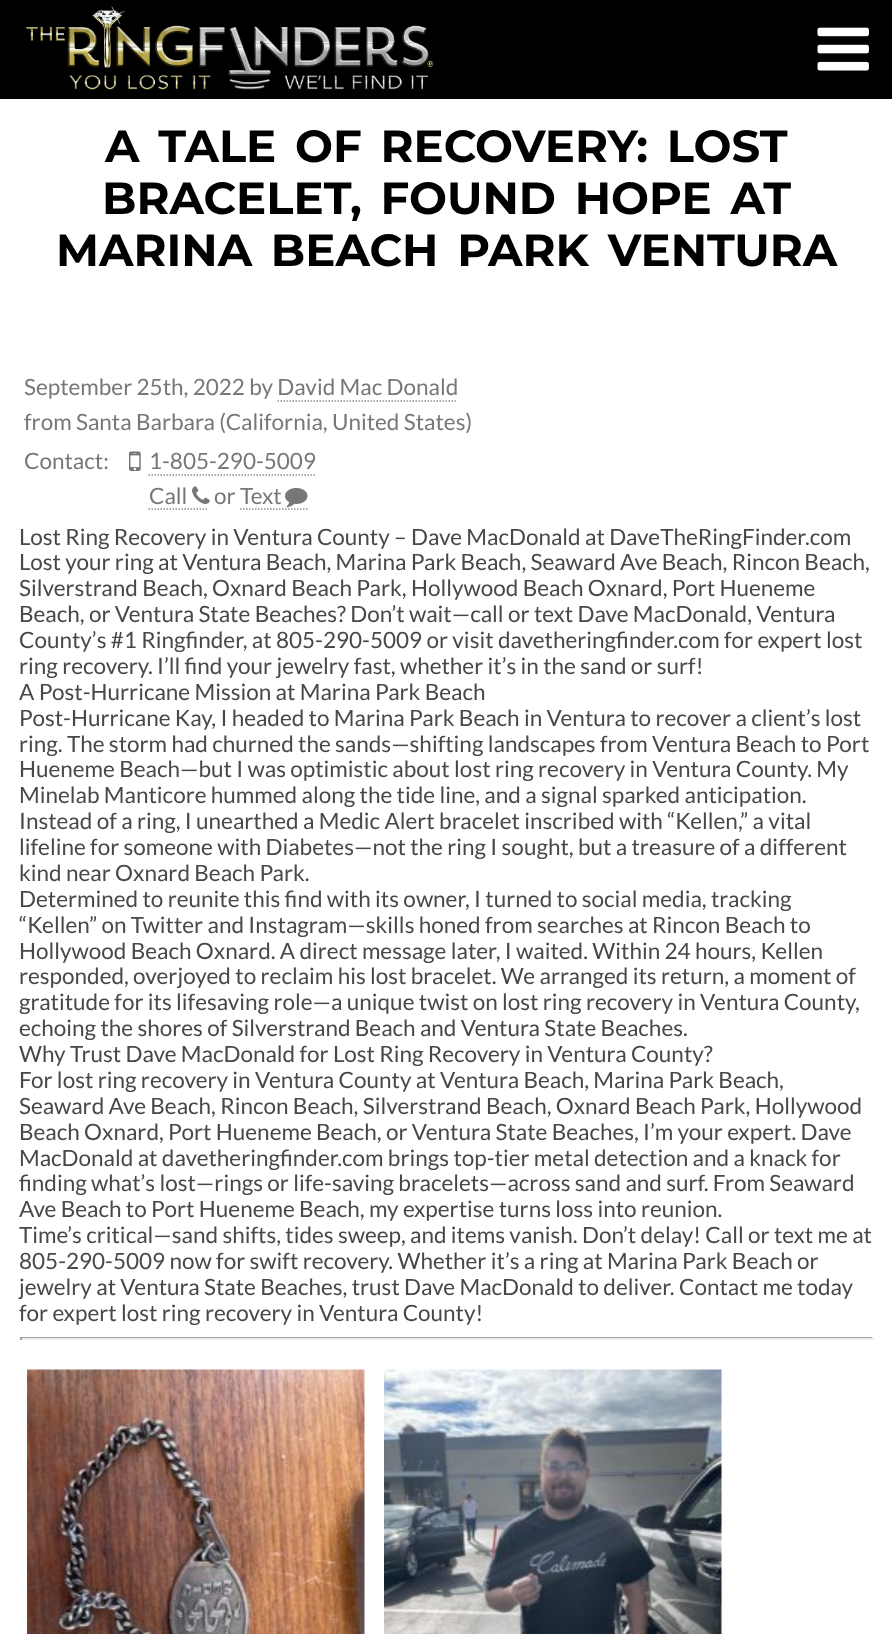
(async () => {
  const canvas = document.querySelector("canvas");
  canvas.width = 892;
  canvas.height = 1634;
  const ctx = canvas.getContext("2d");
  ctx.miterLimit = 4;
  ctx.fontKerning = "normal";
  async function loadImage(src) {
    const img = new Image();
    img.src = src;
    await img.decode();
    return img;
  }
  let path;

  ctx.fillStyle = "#ffffff";
  ctx.fillRect(0, 0, 892, 1634);
  ctx.fillStyle = "#000000";
  ctx.fillRect(0, 0, 892, 99);
  ctx.drawImage(await loadImage("img/1.png"), 25, 6, 409, 84);
  ctx.drawImage(await loadImage("img/2.png"), 817, 27, 52, 44);
  path = new Path2D("M277.5 401H457.5");
  ctx.strokeStyle = "#919191";
  ctx.lineWidth = 1.5;
  ctx.setLineDash([1.5, 1.5]);
  ctx.stroke(path);
  ctx.drawImage(await loadImage("img/3.png"), 129, 451, 12, 20);
  path = new Path2D("M148.5 475H316.5");
  ctx.stroke(path);
  path = new Path2D("M148.5 509H208.5");
  ctx.stroke(path);
  ctx.drawImage(await loadImage("img/4.png"), 192, 486, 18, 18);
  path = new Path2D("M240 509H307.5");
  ctx.stroke(path);
  ctx.drawImage(await loadImage("img/5.png"), 285, 487, 23, 21);
  for (const [x, y, w, h, color] of [
    [20, 1337, 853, 1, "#9f9f9f"],
    [872, 1337, 2, 3, "#eeeeee"],
    [20, 1338, 853, 2, "#eeeeee"],
    [20, 1337, 2, 3, "#9f9f9f"],
  ]) {
    ctx.fillStyle = color;
    ctx.fillRect(x, y, w, h);
  }
  ctx.drawImage(await loadImage("img/6.png"), 27, 1369, 338, 265);
  ctx.drawImage(await loadImage("img/7.png"), 384, 1369, 338, 265);
  ctx.wordSpacing = "6px";
  ctx.font = "100 45px Montserrat";
  ctx.fillStyle = "#000000";
  for (const [text, x, y] of [
    ["A TALE OF RECOVERY: LOST", 105, 162],
    ["BRACELET, FOUND HOPE AT", 102, 214],
    ["MARINA BEACH PARK VENTURA", 56, 266],
  ]) {
    ctx.fillText(text, x, y);
  }
  ctx.wordSpacing = "0px";
  ctx.font = "22.5px Lato";
  ctx.fillStyle = "#777777";
  for (const [text, x, y] of [
    ["September 25th, 2022 by David Mac Donald", 24, 395],
    ["from Santa Barbara (California, United States)", 24, 430],
    ["Contact:", 24, 469],
    ["1-805-290-5009", 149, 469],
    ["Call", 149, 504],
    ["or Text", 214, 504],
  ]) {
    ctx.fillText(text, x, y);
  }
  ctx.fillStyle = "#484848";
  for (const [text, x, y] of [
    ["Lost Ring Recovery in Ventura County – Dave MacDonald at DaveTheRingFinder.com", 19, 545],
    ["Lost your ring at Ventura Beach, Marina Park Beach, Seaward Ave Beach, Rincon Beach,", 19, 570],
    ["Silverstrand Beach, Oxnard Beach Park, Hollywood Beach Oxnard, Port Hueneme", 19, 596],
    ["Beach, or Ventura State Beaches? Don’t wait—call or text Dave MacDonald, Ventura", 19, 622],
    ["County’s #1 Ringfinder, at 805-290-5009 or visit davetheringfinder.com for expert lost", 19, 648],
    ["ring recovery. I’ll find your jewelry fast, whether it’s in the sand or surf!", 19, 674],
    ["A Post-Hurricane Mission at Marina Park Beach", 19, 700],
    ["Post-Hurricane Kay, I headed to Marina Park Beach in Ventura to recover a client’s lost", 19, 726],
    ["ring. The storm had churned the sands—shifting landscapes from Ventura Beach to Port", 19, 752],
    ["Hueneme Beach—but I was optimistic about lost ring recovery in Ventura County. My", 19, 777],
    ["Minelab Manticore hummed along the tide line, and a signal sparked anticipation.", 19, 803],
    ["Instead of a ring, I unearthed a Medic Alert bracelet inscribed with “Kellen,” a vital", 19, 829],
    ["lifeline for someone with Diabetes—not the ring I sought, but a treasure of a different", 19, 855],
    ["kind near Oxnard Beach Park.", 19, 881],
    ["Determined to reunite this find with its owner, I turned to social media, tracking", 19, 907],
    ["“Kellen” on Twitter and Instagram—skills honed from searches at Rincon Beach to", 19, 933],
    ["Hollywood Beach Oxnard. A direct message later, I waited. Within 24 hours, Kellen", 19, 959],
    ["responded, overjoyed to reclaim his lost bracelet. We arranged its return, a moment of", 19, 984],
    ["gratitude for its lifesaving role—a unique twist on lost ring recovery in Ventura County,", 19, 1010],
    ["echoing the shores of Silverstrand Beach and Ventura State Beaches.", 19, 1036],
    ["Why Trust Dave MacDonald for Lost Ring Recovery in Ventura County?", 19, 1062],
    ["For lost ring recovery in Ventura County at Ventura Beach, Marina Park Beach,", 19, 1088],
    ["Seaward Ave Beach, Rincon Beach, Silverstrand Beach, Oxnard Beach Park, Hollywood", 19, 1114],
    ["Beach Oxnard, Port Hueneme Beach, or Ventura State Beaches, I’m your expert. Dave", 19, 1140],
    ["MacDonald at davetheringfinder.com brings top-tier metal detection and a knack for", 19, 1166],
    ["finding what’s lost—rings or life-saving bracelets—across sand and surf. From Seaward", 19, 1191],
    ["Ave Beach to Port Hueneme Beach, my expertise turns loss into reunion.", 19, 1217],
    ["Time’s critical—sand shifts, tides sweep, and items vanish. Don’t delay! Call or text me at", 19, 1243],
    ["805-290-5009 now for swift recovery. Whether it’s a ring at Marina Park Beach or", 19, 1269],
    ["jewelry at Ventura State Beaches, trust Dave MacDonald to deliver. Contact me today", 19, 1295],
    ["for expert lost ring recovery in Ventura County!", 19, 1321],
  ]) {
    ctx.fillText(text, x, y);
  }
})();
